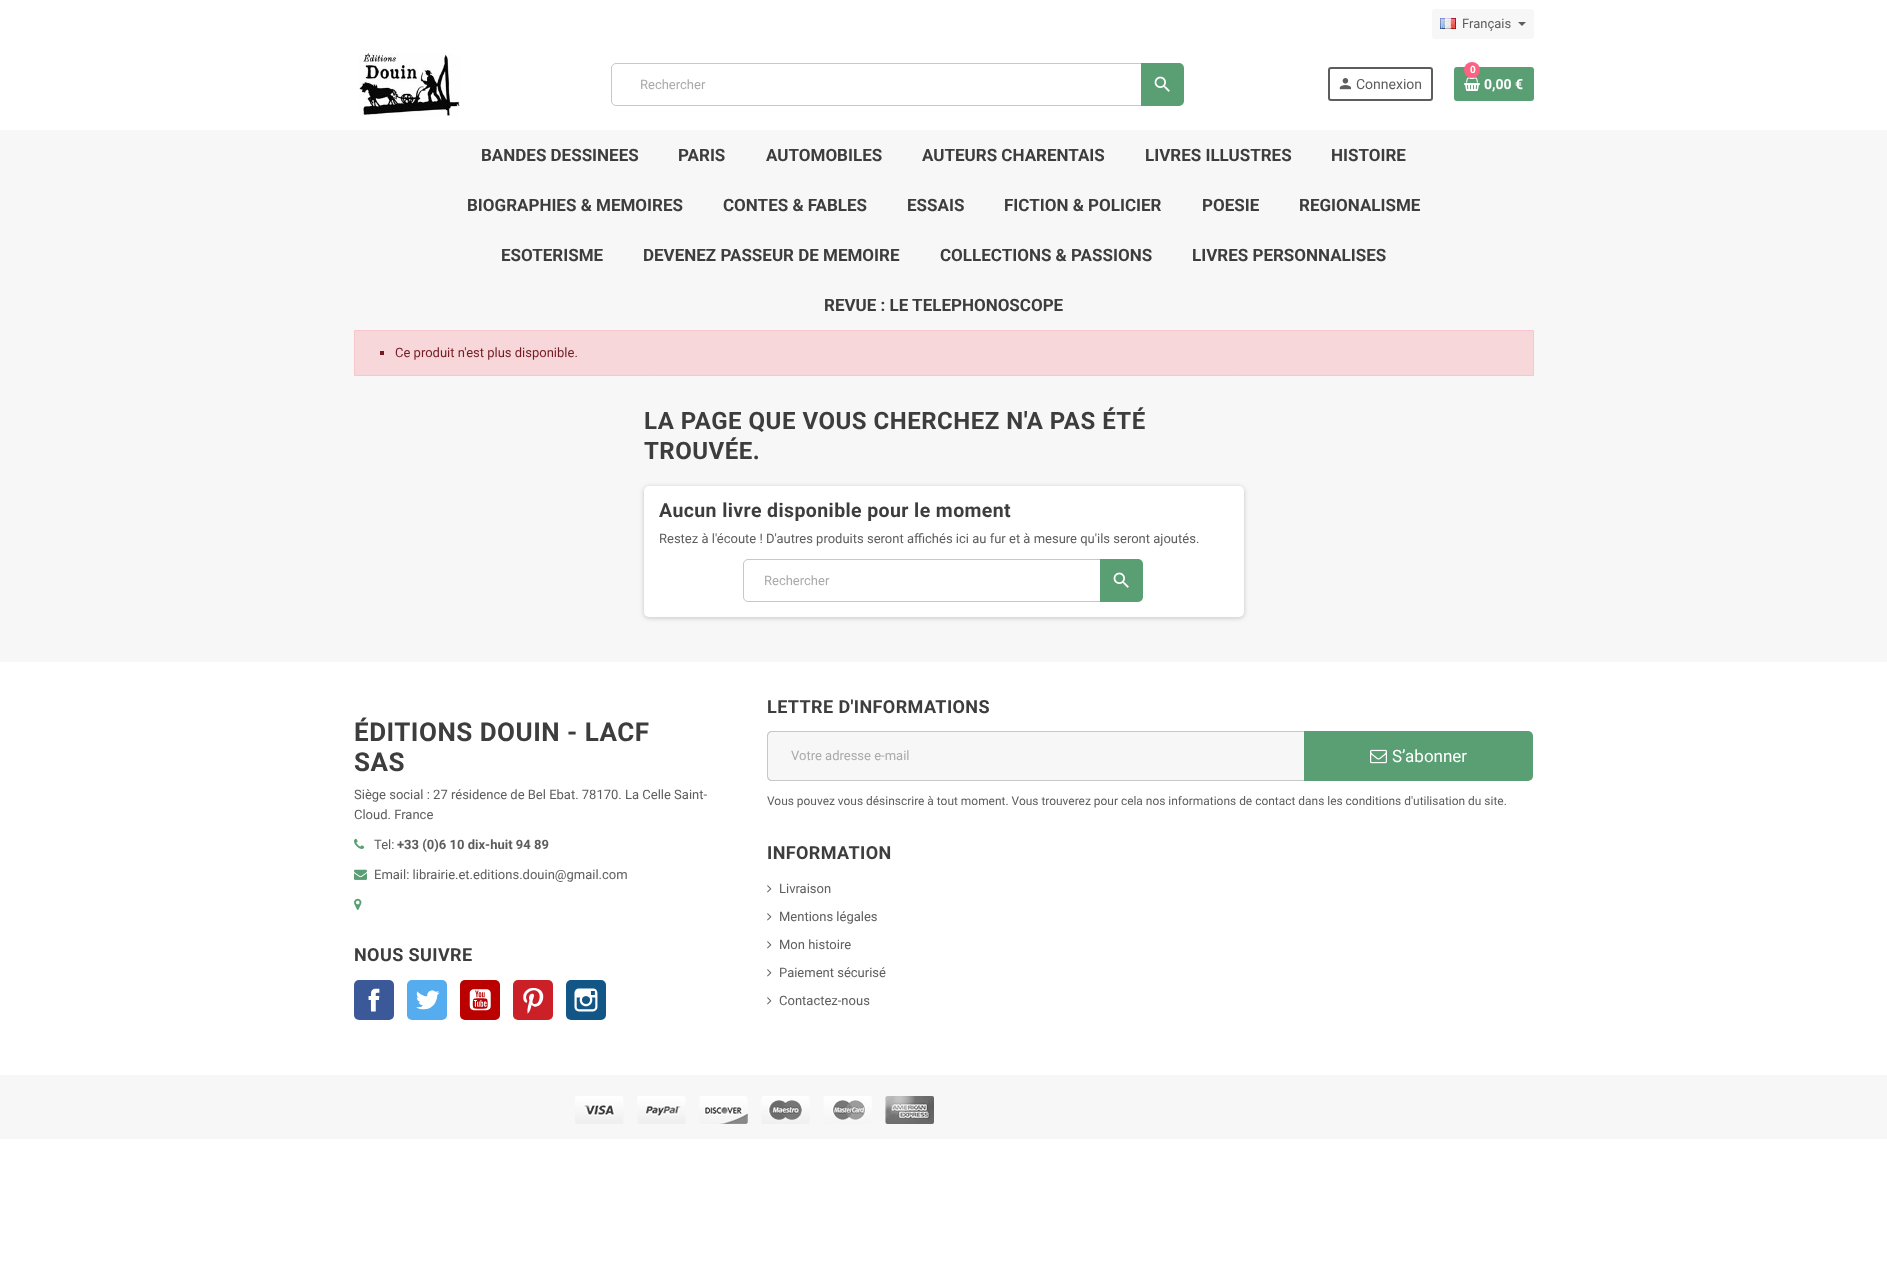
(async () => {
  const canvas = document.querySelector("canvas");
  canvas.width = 1887;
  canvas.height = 1283;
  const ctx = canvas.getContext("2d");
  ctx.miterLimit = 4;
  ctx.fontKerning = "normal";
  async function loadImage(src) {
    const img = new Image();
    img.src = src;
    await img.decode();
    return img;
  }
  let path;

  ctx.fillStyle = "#ffffff";
  ctx.fillRect(0, 0, 1887, 1283);
  ctx.fillStyle = "#f7f7f7";
  ctx.beginPath();
  ctx.roundRect(1432, 9, 102, 30, 3);
  ctx.fill();
  ctx.drawImage(await loadImage("img/1.png"), 1440, 18, 16, 11);
  ctx.fillStyle = "#5d5d5d";
  path = new Path2D("M1518 22H1526L1522 26Z");
  ctx.fill(path);
  ctx.drawImage(await loadImage("img/2.png"), 359, 53, 101, 63);
  ctx.beginPath();
  ctx.roundRect(611.5, 63.5, 571, 42, 4.5);
  ctx.strokeStyle = "#c7c7c7";
  ctx.stroke();
  ctx.fillStyle = "#5a9e74";
  ctx.beginPath();
  ctx.roundRect(1141, 63, 43, 43, [0, 5, 5, 0]);
  ctx.fill();
  ctx.drawImage(await loadImage("img/3.png"), 1154, 76, 16, 16);
  ctx.beginPath();
  ctx.roundRect(1329, 68, 103, 32, 2);
  ctx.strokeStyle = "#5d5d5d";
  ctx.lineWidth = 2;
  ctx.stroke();
  ctx.drawImage(await loadImage("img/4.png"), 1339, 78, 12, 12);
  ctx.beginPath();
  ctx.roundRect(1454, 67, 80, 34, 3);
  ctx.fill();
  ctx.drawImage(await loadImage("img/5.png"), 1464, 77, 16, 14);
  ctx.fillStyle = "#fd6282";
  ctx.beginPath();
  ctx.arc(1472, 70, 8, 0, Math.PI * 2);
  ctx.fill();
  ctx.fillStyle = "#f7f7f7";
  ctx.fillRect(0, 130, 1887, 532);
  ctx.fillStyle = "#f8d7da";
  ctx.beginPath();
  ctx.rect(354.5, 330.5, 1179, 45);
  ctx.fill();
  ctx.strokeStyle = "#f5c6cb";
  ctx.lineWidth = 1;
  ctx.stroke();
  ctx.fillStyle = "#721c24";
  ctx.fillRect(380, 351, 4, 4);
  ctx.fillStyle = "rgba(0, 0, 0, 0.2)";
  ctx.filter = "blur(2.5px)";
  ctx.beginPath();
  ctx.roundRect(644, 487, 600, 131, 5);
  ctx.fill();
  ctx.filter = "none";
  ctx.fillStyle = "#ffffff";
  ctx.beginPath();
  ctx.roundRect(644, 486, 600, 131, 5);
  ctx.fill();
  ctx.beginPath();
  ctx.roundRect(743.5, 559.5, 398, 42, 4.5);
  ctx.strokeStyle = "#c7c7c7";
  ctx.stroke();
  ctx.fillStyle = "#5a9e74";
  ctx.beginPath();
  ctx.roundRect(1100, 559, 43, 43, [0, 5, 5, 0]);
  ctx.fill();
  ctx.drawImage(await loadImage("img/3.png"), 1113, 572, 16, 16);
  ctx.drawImage(await loadImage("img/6.png"), 354, 838, 11, 11);
  ctx.drawImage(await loadImage("img/7.png"), 354, 869, 13, 11);
  ctx.drawImage(await loadImage("img/8.png"), 354, 898, 8, 12);
  ctx.fillStyle = "#3b5998";
  ctx.beginPath();
  ctx.roundRect(354, 980, 40, 40, 5);
  ctx.fill();
  ctx.drawImage(await loadImage("img/9.png"), 368, 988, 12, 24);
  ctx.fillStyle = "#55acee";
  ctx.beginPath();
  ctx.roundRect(407, 980, 40, 40, 5);
  ctx.fill();
  ctx.drawImage(await loadImage("img/10.png"), 416, 990, 24, 20);
  ctx.fillStyle = "#bb0000";
  ctx.beginPath();
  ctx.roundRect(460, 980, 40, 40, 5);
  ctx.fill();
  ctx.drawImage(await loadImage("img/11.png"), 469, 989, 22, 22);
  ctx.fillStyle = "#cb2027";
  ctx.beginPath();
  ctx.roundRect(513, 980, 40, 40, 5);
  ctx.fill();
  ctx.drawImage(await loadImage("img/12.png"), 523, 988, 21, 26);
  ctx.fillStyle = "#125688";
  ctx.beginPath();
  ctx.roundRect(566, 980, 40, 40, 5);
  ctx.fill();
  ctx.drawImage(await loadImage("img/13.png"), 574, 988, 24, 24);
  ctx.fillStyle = "#f7f7f7";
  ctx.beginPath();
  ctx.roundRect(768, 732, 536, 48, [4, 0, 0, 4]);
  ctx.fill();
  ctx.fillStyle = "#c7c7c7";
  path = new Path2D("M772 731H1304V781H772C769 781 767 779 767 776V736C767 733 769 731 772 731ZM772 732H1304V780H772C770 780 768 778 768 776V736C768 734 770 732 772 732Z");
  ctx.fill(path, "evenodd");
  ctx.fillStyle = "#5a9e74";
  ctx.beginPath();
  ctx.roundRect(1304, 731, 229, 50, [0, 5, 5, 0]);
  ctx.fill();
  ctx.drawImage(await loadImage("img/14.png"), 1370, 749, 17, 15);
  ctx.drawImage(await loadImage("img/15.png"), 767, 885, 5, 8);
  ctx.drawImage(await loadImage("img/15.png"), 767, 913, 5, 8);
  ctx.drawImage(await loadImage("img/15.png"), 767, 941, 5, 8);
  ctx.drawImage(await loadImage("img/15.png"), 767, 969, 5, 8);
  ctx.drawImage(await loadImage("img/15.png"), 767, 997, 5, 8);
  ctx.fillStyle = "#f7f7f7";
  ctx.fillRect(0, 1075, 1887, 64);
  ctx.drawImage(await loadImage("img/16.png"), 575, 1096, 359, 28);
  ctx.font = "13px Roboto";
  ctx.fillStyle = "#5d5d5d";
  ctx.fillText("Français", 1462, 28);
  ctx.fillStyle = "#aaaaaa";
  ctx.fillText("Rechercher", 640, 89);
  ctx.font = "14px Roboto";
  ctx.fillStyle = "#5d5d5d";
  ctx.fillText("Connexion", 1356, 89);
  ctx.font = "bold 10px Roboto";
  ctx.fillStyle = "#ffffff";
  ctx.fillText("0", 1470, 73);
  ctx.font = "bold 14px Roboto";
  ctx.fillText("0,00 €", 1484, 89);
  ctx.font = "bold 17px 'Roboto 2'";
  ctx.fillStyle = "#3d3d3d";
  for (const [text, x, y] of [
    ["BANDES DESSINEES", 481, 161],
    ["PARIS", 678, 161],
    ["AUTOMOBILES", 766, 161],
    ["AUTEURS CHARENTAIS", 922, 161],
    ["LIVRES ILLUSTRES", 1145, 161],
    ["HISTOIRE", 1331, 161],
    ["BIOGRAPHIES & MEMOIRES", 467, 211],
    ["CONTES & FABLES", 723, 211],
    ["ESSAIS", 907, 211],
    ["FICTION & POLICIER", 1004, 211],
    ["POESIE", 1202, 211],
    ["REGIONALISME", 1299, 211],
    ["ESOTERISME", 501, 261],
    ["DEVENEZ PASSEUR DE MEMOIRE", 643, 261],
    ["COLLECTIONS & PASSIONS", 940, 261],
    ["LIVRES PERSONNALISES", 1192, 261],
    ["REVUE : LE TELEPHONOSCOPE", 824, 311],
  ]) {
    ctx.fillText(text, x, y);
  }
  ctx.font = "13px Roboto";
  ctx.fillStyle = "#721c24";
  ctx.fillText("Ce produit n'est plus disponible.", 395, 357);
  ctx.letterSpacing = "0.5px";
  ctx.font = "bold 24px 'Roboto 2'";
  ctx.fillStyle = "#3d3d3d";
  ctx.fillText("LA PAGE QUE VOUS CHERCHEZ N'A PAS ÉTÉ", 644, 429);
  ctx.fillText("TROUVÉE.", 644, 459);
  ctx.letterSpacing = "0.4px";
  ctx.font = "bold 19.5px 'Roboto 2'";
  ctx.fillText("Aucun livre disponible pour le moment", 659, 517);
  ctx.letterSpacing = "0px";
  ctx.font = "13px Roboto";
  ctx.fillStyle = "#5d5d5d";
  ctx.fillText("Restez à l'écoute ! D'autres produits seront affichés ici au fur et à mesure qu'ils seront ajoutés.", 659, 543);
  ctx.fillStyle = "#aaaaaa";
  ctx.fillText("Rechercher", 764, 585);
  ctx.letterSpacing = "0.5px";
  ctx.font = "bold 26px 'Roboto 2'";
  ctx.fillStyle = "#3d3d3d";
  ctx.fillText("ÉDITIONS DOUIN - LACF", 354, 741);
  ctx.fillText("SAS", 354, 771);
  ctx.letterSpacing = "0px";
  ctx.font = "13px Roboto";
  ctx.fillStyle = "#5d5d5d";
  for (const [text, x, y] of [
    ["Siège social : 27 résidence de Bel Ebat. 78170. La Celle Saint-", 354, 799],
    ["Cloud. France", 354, 819],
    ["Tel:", 374, 849],
  ]) {
    ctx.fillText(text, x, y);
  }
  ctx.font = "bold 13px Roboto";
  ctx.fillText("+33 (0)6 10 dix-huit 94 89", 397, 849);
  ctx.font = "13px Roboto";
  ctx.fillText("Email: librairie.et.editions.douin@gmail.com", 374, 879);
  ctx.letterSpacing = "0.4px";
  ctx.font = "bold 18px 'Roboto 2'";
  ctx.fillStyle = "#3d3d3d";
  ctx.fillText("NOUS SUIVRE", 354, 961);
  ctx.fillText("LETTRE D'INFORMATIONS", 767, 713);
  ctx.letterSpacing = "0px";
  ctx.font = "13px Roboto";
  ctx.fillStyle = "#aaaaaa";
  ctx.fillText("Votre adresse e-mail", 791, 760);
  ctx.font = "17px Roboto";
  ctx.fillStyle = "#ffffff";
  ctx.fillText("S’abonner", 1392, 762);
  ctx.font = "11.95px Roboto";
  ctx.fillStyle = "#5d5d5d";
  ctx.fillText("Vous pouvez vous désinscrire à tout moment. Vous trouverez pour cela nos informations de contact dans les conditions d'utilisation du site.", 767, 805);
  ctx.letterSpacing = "0.4px";
  ctx.font = "bold 18px 'Roboto 2'";
  ctx.fillStyle = "#3d3d3d";
  ctx.fillText("INFORMATION", 767, 859);
  ctx.letterSpacing = "0px";
  ctx.font = "13px Roboto";
  ctx.fillStyle = "#5d5d5d";
  for (const [text, x, y] of [
    ["Livraison", 779, 893],
    ["Mentions légales", 779, 921],
    ["Mon histoire", 779, 949],
    ["Paiement sécurisé", 779, 977],
    ["Contactez-nous", 779, 1005],
  ]) {
    ctx.fillText(text, x, y);
  }
})();
